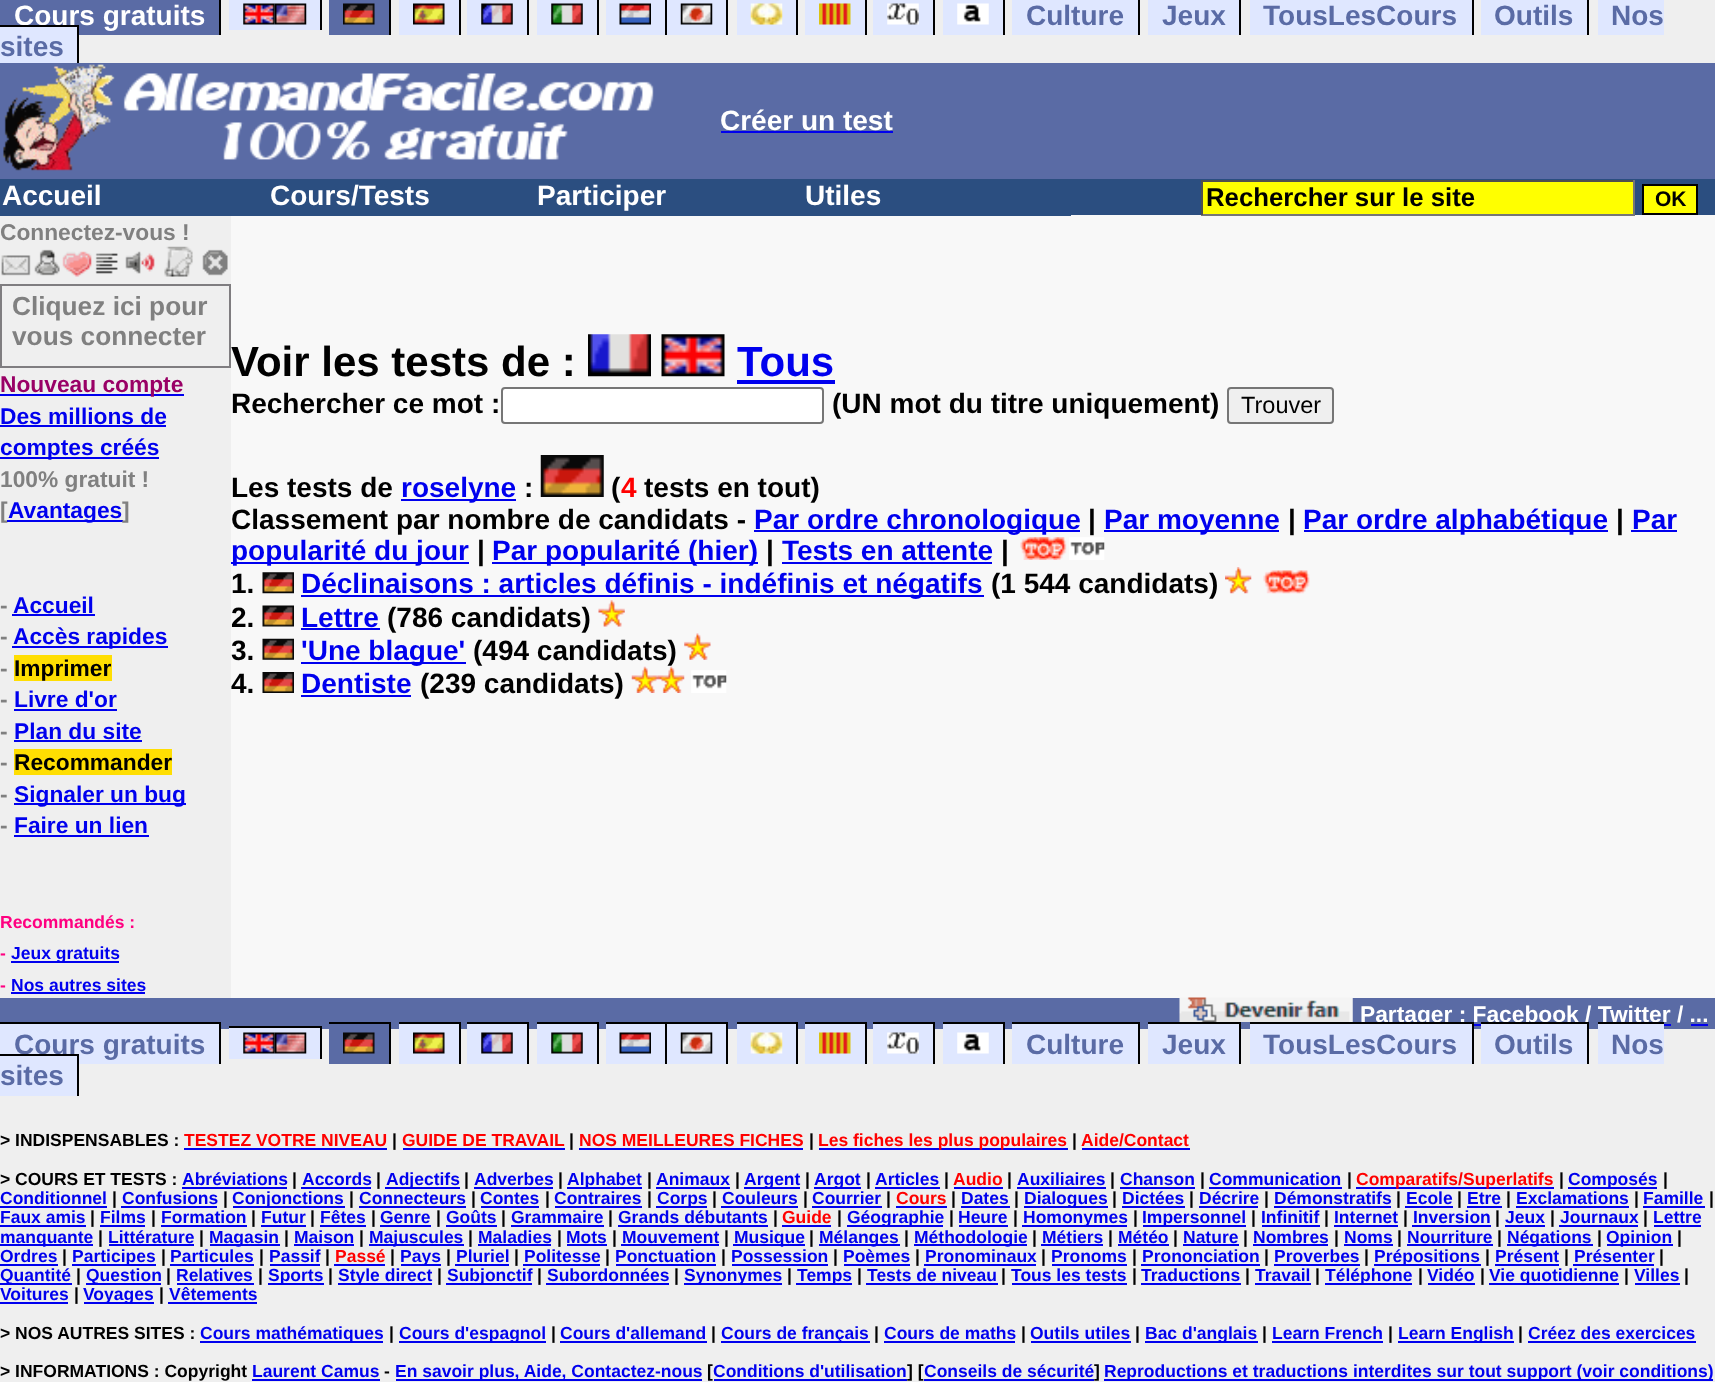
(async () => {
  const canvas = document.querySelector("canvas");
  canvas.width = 1715;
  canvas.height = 1382;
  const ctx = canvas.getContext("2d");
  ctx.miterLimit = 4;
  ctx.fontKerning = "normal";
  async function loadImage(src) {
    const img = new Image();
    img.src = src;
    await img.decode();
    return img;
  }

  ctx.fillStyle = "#efefef";
  ctx.fillRect(0, 0, 1715, 1382);
  for (const [x, y, w, h, color] of [
    [229, 0, 91, 30, "#dfe7ff"],
    [320, 0, 2, 30, "#000000"],
    [329, 0, 60, 35, "#5a6ba5"],
    [389, 0, 2, 35, "#000000"],
    [399, 0, 60, 35, "#dfe7ff"],
    [459, 0, 2, 35, "#000000"],
    [467, 0, 60, 35, "#dfe7ff"],
    [527, 0, 2, 35, "#000000"],
    [537, 0, 60, 35, "#dfe7ff"],
    [597, 0, 2, 35, "#000000"],
    [606, 0, 59, 35, "#dfe7ff"],
    [665, 0, 2, 35, "#000000"],
    [667, 0, 59, 35, "#dfe7ff"],
    [726, 0, 2, 35, "#000000"],
    [737, 0, 59, 35, "#dfe7ff"],
    [796, 0, 2, 35, "#000000"],
    [805, 0, 60, 35, "#dfe7ff"],
    [865, 0, 2, 35, "#000000"],
    [873, 0, 60, 35, "#dfe7ff"],
    [933, 0, 2, 35, "#000000"],
    [943, 0, 60, 35, "#dfe7ff"],
    [1003, 0, 2, 35, "#000000"],
    [0, 0, 219, 35, "#5a6ba5"],
    [219, 0, 2, 35, "#000000"],
  ]) {
    ctx.fillStyle = color;
    ctx.fillRect(x, y, w, h);
  }
  ctx.drawImage(await loadImage("img/1.png"), 243, 3, 32, 22);
  ctx.drawImage(await loadImage("img/2.png"), 274, 3, 33, 22);
  ctx.drawImage(await loadImage("img/3.png"), 343, 3, 32, 22);
  ctx.drawImage(await loadImage("img/4.png"), 413, 3, 32, 22);
  ctx.drawImage(await loadImage("img/5.png"), 481, 3, 32, 22);
  ctx.drawImage(await loadImage("img/6.png"), 551, 3, 32, 22);
  ctx.drawImage(await loadImage("img/7.png"), 619, 3, 32, 22);
  ctx.drawImage(await loadImage("img/8.png"), 680, 3, 33, 22);
  ctx.drawImage(await loadImage("img/9.png"), 750, 3, 33, 22);
  ctx.drawImage(await loadImage("img/10.png"), 819, 3, 32, 22);
  ctx.drawImage(await loadImage("img/11.png"), 887, 3, 32, 22);
  ctx.drawImage(await loadImage("img/12.png"), 957, 3, 32, 22);
  for (const [x, y, w, h, color] of [
    [1012, 0, 126, 35, "#dfe7ff"],
    [1138, 0, 2, 35, "#000000"],
    [1148, 0, 91, 35, "#dfe7ff"],
    [1239, 0, 2, 35, "#000000"],
    [1250, 0, 222, 35, "#dfe7ff"],
    [1472, 0, 2, 35, "#000000"],
    [1481, 0, 106, 35, "#dfe7ff"],
    [1587, 0, 2, 35, "#000000"],
    [1598, 0, 66, 35, "#dfe7ff"],
    [0, 63, 1715, 116, "#5a6ba5"],
    [721, 131, 172, 2, "#0000ee"],
    [0, 179, 1715, 36, "#2b4e80"],
    [231, 215, 1484, 783, "#f8f8f8"],
    [0, 215, 1071, 1, "#2b4e80"],
    [1203, 182, 430, 32, "#ffff00"],
    [1201, 180, 434, 2, "#4f4f4f"],
    [1633, 180, 2, 35, "#767676"],
    [1201, 214, 434, 2, "#767676"],
    [1201, 180, 2, 35, "#4f4f4f"],
  ]) {
    ctx.fillStyle = color;
    ctx.fillRect(x, y, w, h);
  }
  ctx.fillStyle = "#ffff00";
  ctx.beginPath();
  ctx.rect(1643, 185, 54, 29);
  ctx.fill();
  ctx.strokeStyle = "#000000";
  ctx.lineWidth = 2;
  ctx.stroke();
  ctx.drawImage(await loadImage("img/14.png"), 1, 246, 227, 31);
  ctx.strokeStyle = "#7f7d80";
  ctx.strokeRect(1, 285, 229, 82);
  for (const [x, y, w, h, color] of [
    [0, 394, 184, 2, "#0000ee"],
    [0, 425, 166, 2, "#0000ee"],
    [0, 457, 159, 2, "#0000ee"],
    [12, 614, 83, 2, "#0000ee"],
    [12, 646, 156, 2, "#0000ee"],
    [14, 655, 98, 26, "#ffde02"],
    [14, 709, 103, 2, "#0000ee"],
    [14, 740, 128, 2, "#0000ee"],
    [14, 749, 158, 26, "#ffde02"],
    [14, 803, 172, 2, "#0000ee"],
    [14, 835, 135, 2, "#0000ee"],
    [11, 961, 108, 2, "#0000ee"],
    [11, 992, 134, 2, "#0000ee"],
  ]) {
    ctx.fillStyle = color;
    ctx.fillRect(x, y, w, h);
  }
  ctx.drawImage(await loadImage("img/15.png"), 588, 334, 63, 43);
  ctx.drawImage(await loadImage("img/16.png"), 661, 334, 64, 43);
  ctx.fillRect(737, 380, 98, 4);
  ctx.fillStyle = "#ffffff";
  ctx.beginPath();
  ctx.roundRect(502, 388, 321, 35, 3);
  ctx.fill();
  ctx.strokeStyle = "#767676";
  ctx.stroke();
  ctx.fillStyle = "#efefef";
  ctx.beginPath();
  ctx.roundRect(1228, 388, 105, 35, 3);
  ctx.fill();
  ctx.stroke();
  ctx.fillStyle = "#0000ee";
  ctx.fillRect(401, 499, 115, 2);
  ctx.drawImage(await loadImage("img/17.png"), 540, 455, 64, 42);
  for (const [x, y, w, h, color] of [
    [754, 530, 326, 2, "#0000ee"],
    [1104, 530, 175, 2, "#0000ee"],
    [1304, 530, 304, 2, "#0000ee"],
    [1631, 530, 46, 2, "#0000ee"],
    [231, 562, 238, 2, "#0000ee"],
    [492, 562, 266, 2, "#0000ee"],
    [782, 562, 210, 2, "#0000ee"],
  ]) {
    ctx.fillStyle = color;
    ctx.fillRect(x, y, w, h);
  }
  ctx.drawImage(await loadImage("img/18.png"), 1020, 537, 47, 23);
  ctx.drawImage(await loadImage("img/19.png"), 1069, 537, 36, 23);
  ctx.drawImage(await loadImage("img/20.png"), 262, 572, 32, 22);
  ctx.fillRect(301, 595, 683, 2);
  ctx.drawImage(await loadImage("img/21.png"), 1225, 567, 27, 27);
  ctx.drawImage(await loadImage("img/22.png"), 1263, 570, 47, 24);
  ctx.drawImage(await loadImage("img/23.png"), 262, 605, 32, 22);
  ctx.fillRect(301, 628, 79, 2);
  ctx.drawImage(await loadImage("img/24.png"), 598, 600, 27, 27);
  ctx.drawImage(await loadImage("img/25.png"), 262, 638, 32, 22);
  ctx.fillRect(301, 662, 165, 2);
  ctx.drawImage(await loadImage("img/26.png"), 684, 633, 27, 27);
  ctx.drawImage(await loadImage("img/27.png"), 262, 672, 32, 21);
  ctx.fillRect(301, 695, 110, 2);
  ctx.drawImage(await loadImage("img/28.png"), 631, 666, 27, 27);
  ctx.drawImage(await loadImage("img/29.png"), 658, 666, 27, 27);
  ctx.drawImage(await loadImage("img/30.png"), 691, 670, 36, 23);
  ctx.fillStyle = "#5a6ba5";
  ctx.fillRect(0, 998, 1715, 31);
  ctx.drawImage(await loadImage("img/31.png"), 1179, 997, 174, 25);
  for (const [x, y, w, h, color] of [
    [329, 1022, 61, 2, "#000000"],
    [389, 1022, 2, 42, "#000000"],
    [399, 1022, 61, 2, "#000000"],
    [459, 1022, 2, 42, "#000000"],
    [467, 1022, 62, 2, "#000000"],
    [527, 1022, 2, 42, "#000000"],
    [537, 1022, 62, 2, "#000000"],
    [597, 1022, 2, 42, "#000000"],
    [606, 1022, 122, 2, "#000000"],
    [665, 1022, 2, 42, "#000000"],
    [726, 1022, 2, 42, "#000000"],
    [737, 1022, 61, 2, "#000000"],
    [796, 1022, 2, 42, "#000000"],
    [805, 1022, 61, 2, "#000000"],
    [865, 1022, 2, 42, "#000000"],
    [873, 1022, 62, 2, "#000000"],
    [933, 1022, 2, 42, "#000000"],
    [943, 1022, 62, 2, "#000000"],
    [229, 1026, 93, 2, "#000000"],
    [399, 1024, 60, 40, "#dfe7ff"],
    [467, 1024, 60, 40, "#dfe7ff"],
    [537, 1024, 60, 40, "#dfe7ff"],
    [606, 1024, 59, 40, "#dfe7ff"],
    [667, 1024, 59, 40, "#dfe7ff"],
    [737, 1024, 59, 40, "#dfe7ff"],
    [805, 1024, 60, 40, "#dfe7ff"],
    [873, 1024, 60, 40, "#dfe7ff"],
    [943, 1024, 60, 40, "#dfe7ff"],
    [1003, 1022, 2, 42, "#000000"],
    [229, 1028, 91, 31, "#dfe7ff"],
    [320, 1026, 2, 33, "#000000"],
    [329, 1029, 60, 35, "#5a6ba5"],
    [0, 1024, 219, 40, "#dfe7ff"],
    [0, 1022, 221, 2, "#000000"],
    [219, 1022, 2, 42, "#000000"],
  ]) {
    ctx.fillStyle = color;
    ctx.fillRect(x, y, w, h);
  }
  ctx.drawImage(await loadImage("img/1.png"), 243, 1032, 32, 22);
  ctx.drawImage(await loadImage("img/2.png"), 274, 1032, 33, 22);
  ctx.drawImage(await loadImage("img/3.png"), 343, 1032, 32, 22);
  ctx.drawImage(await loadImage("img/4.png"), 413, 1032, 32, 22);
  ctx.drawImage(await loadImage("img/5.png"), 481, 1032, 32, 22);
  ctx.drawImage(await loadImage("img/6.png"), 551, 1032, 32, 22);
  ctx.drawImage(await loadImage("img/7.png"), 619, 1032, 32, 22);
  ctx.drawImage(await loadImage("img/8.png"), 680, 1032, 33, 22);
  ctx.drawImage(await loadImage("img/9.png"), 750, 1032, 33, 22);
  ctx.drawImage(await loadImage("img/10.png"), 819, 1032, 32, 22);
  ctx.drawImage(await loadImage("img/11.png"), 887, 1032, 32, 22);
  ctx.drawImage(await loadImage("img/12.png"), 957, 1032, 32, 22);
  for (const [x, y, w, h, color] of [
    [1012, 1024, 126, 40, "#dfe7ff"],
    [1012, 1022, 127, 2, "#000000"],
    [1138, 1022, 2, 42, "#000000"],
    [1148, 1024, 91, 40, "#dfe7ff"],
    [1148, 1022, 93, 2, "#000000"],
    [1239, 1022, 2, 42, "#000000"],
    [0, 1064, 77, 32, "#dfe7ff"],
    [184, 1148, 203, 2, "#0000ee"],
    [403, 1148, 162, 2, "#0000ee"],
    [579, 1148, 224, 2, "#0000ee"],
    [819, 1148, 249, 2, "#0000ee"],
    [1082, 1148, 108, 2, "#0000ee"],
    [182, 1187, 105, 2, "#0000ee"],
    [301, 1187, 70, 2, "#0000ee"],
    [385, 1187, 75, 2, "#0000ee"],
    [474, 1187, 79, 2, "#0000ee"],
    [567, 1187, 75, 2, "#0000ee"],
    [656, 1187, 74, 2, "#0000ee"],
    [744, 1187, 56, 2, "#0000ee"],
    [814, 1187, 47, 2, "#0000ee"],
    [875, 1187, 65, 2, "#0000ee"],
    [954, 1187, 49, 2, "#0000ee"],
    [1017, 1187, 89, 2, "#0000ee"],
    [1120, 1187, 75, 2, "#0000ee"],
    [1209, 1187, 133, 2, "#0000ee"],
    [1356, 1187, 198, 2, "#0000ee"],
    [1568, 1187, 89, 2, "#0000ee"],
    [0, 1206, 107, 2, "#0000ee"],
    [121, 1206, 96, 2, "#0000ee"],
    [233, 1206, 112, 2, "#0000ee"],
    [359, 1206, 107, 2, "#0000ee"],
    [481, 1206, 58, 2, "#0000ee"],
    [555, 1206, 87, 2, "#0000ee"],
    [656, 1206, 51, 2, "#0000ee"],
    [721, 1206, 77, 2, "#0000ee"],
    [812, 1206, 70, 2, "#0000ee"],
    [896, 1206, 51, 2, "#0000ee"],
    [961, 1206, 49, 2, "#0000ee"],
    [1024, 1206, 84, 2, "#0000ee"],
    [1122, 1206, 63, 2, "#0000ee"],
    [1199, 1206, 59, 2, "#0000ee"],
    [1274, 1206, 117, 2, "#0000ee"],
    [1405, 1206, 48, 2, "#0000ee"],
    [1467, 1206, 35, 2, "#0000ee"],
    [1516, 1206, 113, 2, "#0000ee"],
    [1643, 1206, 62, 2, "#0000ee"],
    [0, 1225, 86, 2, "#0000ee"],
    [100, 1225, 45, 2, "#0000ee"],
    [161, 1225, 86, 2, "#0000ee"],
    [261, 1225, 45, 2, "#0000ee"],
    [320, 1225, 46, 2, "#0000ee"],
    [380, 1225, 51, 2, "#0000ee"],
    [446, 1225, 51, 2, "#0000ee"],
    [511, 1225, 93, 2, "#0000ee"],
    [618, 1225, 150, 2, "#0000ee"],
    [782, 1225, 49, 2, "#0000ee"],
    [847, 1225, 96, 2, "#0000ee"],
    [959, 1225, 49, 2, "#0000ee"],
    [1022, 1225, 105, 2, "#0000ee"],
    [1143, 1225, 103, 2, "#0000ee"],
    [1262, 1225, 58, 2, "#0000ee"],
    [1334, 1225, 64, 2, "#0000ee"],
    [1412, 1225, 79, 2, "#0000ee"],
    [1505, 1225, 40, 2, "#0000ee"],
    [1559, 1225, 79, 2, "#0000ee"],
    [1654, 1225, 47, 2, "#0000ee"],
    [0, 1244, 93, 2, "#0000ee"],
    [109, 1244, 85, 2, "#0000ee"],
    [210, 1244, 70, 2, "#0000ee"],
    [294, 1244, 60, 2, "#0000ee"],
    [369, 1244, 95, 2, "#0000ee"],
    [478, 1244, 73, 2, "#0000ee"],
    [567, 1244, 40, 2, "#0000ee"],
    [621, 1244, 98, 2, "#0000ee"],
    [733, 1244, 72, 2, "#0000ee"],
    [819, 1244, 81, 2, "#0000ee"],
    [914, 1244, 113, 2, "#0000ee"],
    [1041, 1244, 62, 2, "#0000ee"],
    [1118, 1244, 51, 2, "#0000ee"],
    [1183, 1244, 56, 2, "#0000ee"],
    [1253, 1244, 75, 2, "#0000ee"],
    [1344, 1244, 49, 2, "#0000ee"],
    [1407, 1244, 86, 2, "#0000ee"],
    [1507, 1244, 86, 2, "#0000ee"],
    [1607, 1244, 66, 2, "#0000ee"],
    [0, 1264, 58, 2, "#0000ee"],
    [72, 1264, 84, 2, "#0000ee"],
    [170, 1264, 84, 2, "#0000ee"],
    [270, 1264, 50, 2, "#0000ee"],
    [334, 1264, 51, 2, "#0000ee"],
    [401, 1264, 40, 2, "#0000ee"],
    [455, 1264, 54, 2, "#0000ee"],
    [523, 1264, 77, 2, "#0000ee"],
    [616, 1264, 100, 2, "#0000ee"],
    [732, 1264, 96, 2, "#0000ee"],
    [844, 1264, 66, 2, "#0000ee"],
    [924, 1264, 112, 2, "#0000ee"],
    [1052, 1264, 75, 2, "#0000ee"],
    [1141, 1264, 119, 2, "#0000ee"],
    [1274, 1264, 86, 2, "#0000ee"],
    [1374, 1264, 107, 2, "#0000ee"],
    [1495, 1264, 64, 2, "#0000ee"],
    [1573, 1264, 81, 2, "#0000ee"],
    [0, 1283, 72, 2, "#0000ee"],
    [86, 1283, 75, 2, "#0000ee"],
    [177, 1283, 77, 2, "#0000ee"],
    [268, 1283, 56, 2, "#0000ee"],
    [338, 1283, 94, 2, "#0000ee"],
    [446, 1283, 86, 2, "#0000ee"],
    [546, 1283, 123, 2, "#0000ee"],
    [684, 1283, 98, 2, "#0000ee"],
    [796, 1283, 56, 2, "#0000ee"],
    [866, 1283, 132, 2, "#0000ee"],
    [1012, 1283, 115, 2, "#0000ee"],
    [1141, 1283, 100, 2, "#0000ee"],
    [1255, 1283, 56, 2, "#0000ee"],
    [1325, 1283, 87, 2, "#0000ee"],
    [1428, 1283, 47, 2, "#0000ee"],
    [1489, 1283, 130, 2, "#0000ee"],
    [1635, 1283, 45, 2, "#0000ee"],
    [0, 1302, 68, 2, "#0000ee"],
    [84, 1302, 70, 2, "#0000ee"],
    [168, 1302, 89, 2, "#0000ee"],
    [200, 1341, 183, 2, "#0000ee"],
    [399, 1341, 147, 2, "#0000ee"],
    [560, 1341, 147, 2, "#0000ee"],
    [721, 1341, 149, 2, "#0000ee"],
    [884, 1341, 131, 2, "#0000ee"],
    [1031, 1341, 100, 2, "#0000ee"],
    [1145, 1341, 113, 2, "#0000ee"],
    [1272, 1341, 111, 2, "#0000ee"],
    [1398, 1341, 116, 2, "#0000ee"],
    [1528, 1341, 168, 2, "#0000ee"],
    [252, 1379, 128, 2, "#0000ee"],
    [396, 1379, 306, 2, "#0000ee"],
    [714, 1379, 193, 2, "#0000ee"],
    [924, 1379, 170, 2, "#0000ee"],
    [1104, 1379, 609, 2, "#0000ee"],
  ]) {
    ctx.fillStyle = color;
    ctx.fillRect(x, y, w, h);
  }
  ctx.font = "bold 28px Liberation Sans";
  ctx.fillStyle = "#ffffff";
  ctx.fillText("Cours gratuits", 14, 25);
  ctx.fillStyle = "#5a6ba5";
  for (const [text, x, y] of [
    ["Culture", 1026, 25],
    ["Jeux", 1162, 25],
    ["TousLesCours", 1263, 25],
    ["Outils", 1494, 25],
    ["Nos", 1611, 25],
  ]) {
    ctx.fillText(text, x, y);
  }
  ctx.fillStyle = "#dfe7ff";
  ctx.fillRect(0, 27, 77, 36);
  ctx.fillStyle = "#5a6ba5";
  ctx.fillText("sites", 0, 56);
  ctx.fillStyle = "#000000";
  ctx.fillRect(0, 25, 79, 2);
  ctx.fillRect(77, 25, 2, 42);
  ctx.drawImage(await loadImage("img/13.png"), 0, 63, 654, 108);
  ctx.fillStyle = "#ffffff";
  for (const [text, x, y] of [
    ["Créer un test", 720, 130],
    ["Accueil", 2, 205],
    ["Cours/Tests", 270, 205],
    ["Participer", 537, 205],
    ["Utiles", 805, 205],
  ]) {
    ctx.fillText(text, x, y);
  }
  ctx.font = "bold 25.75px Liberation Sans";
  ctx.fillStyle = "#000000";
  ctx.fillText("Rechercher sur le site", 1206, 206);
  ctx.font = "bold 21px Liberation Sans";
  ctx.fillText("OK", 1655, 206);
  ctx.font = "bold 22.75px Liberation Sans";
  ctx.fillStyle = "#808080";
  ctx.fillText("Connectez-vous !", 0, 240);
  ctx.font = "bold 26.25px Liberation Sans";
  ctx.fillText("Cliquez ici pour", 12, 315);
  ctx.fillText("vous connecter", 12, 345);
  ctx.font = "bold 22.75px Liberation Sans";
  ctx.fillStyle = "#990066";
  ctx.fillText("Nouveau compte", 0, 392);
  ctx.fillStyle = "#0000ee";
  ctx.fillText("Des millions de", 0, 424);
  ctx.fillText("comptes créés", 0, 455);
  ctx.fillStyle = "#808080";
  ctx.fillText("100% gratuit !", 0, 487);
  ctx.fillText("[", 0, 518);
  ctx.fillStyle = "#0000ee";
  ctx.fillRect(7, 520, 116, 2);
  ctx.fillText("Avantages", 8, 518);
  ctx.fillStyle = "#808080";
  ctx.fillText("]", 122, 518);
  ctx.fillText("-", 0, 613);
  ctx.fillStyle = "#0000ee";
  ctx.fillText("Accueil", 13, 613);
  ctx.fillStyle = "#808080";
  ctx.fillText("-", 0, 644);
  ctx.fillStyle = "#0000ee";
  ctx.fillText("Accès rapides", 13, 644);
  ctx.fillStyle = "#808080";
  ctx.fillText("-", 0, 676);
  ctx.fillStyle = "#000000";
  ctx.fillText("Imprimer", 14, 676);
  ctx.fillStyle = "#808080";
  ctx.fillText("-", 0, 707);
  ctx.fillStyle = "#0000ee";
  ctx.fillText("Livre d'or", 14, 707);
  ctx.fillStyle = "#808080";
  ctx.fillText("-", 0, 739);
  ctx.fillStyle = "#0000ee";
  ctx.fillText("Plan du site", 14, 739);
  ctx.fillStyle = "#808080";
  ctx.fillText("-", 0, 770);
  ctx.fillStyle = "#000000";
  ctx.fillText("Recommander", 14, 770);
  ctx.fillStyle = "#808080";
  ctx.fillText("-", 0, 802);
  ctx.fillStyle = "#0000ee";
  ctx.fillText("Signaler un bug", 14, 802);
  ctx.fillStyle = "#808080";
  ctx.fillText("-", 0, 833);
  ctx.fillStyle = "#0000ee";
  ctx.fillText("Faire un lien", 14, 833);
  ctx.font = "bold 17.5px Liberation Sans";
  ctx.fillStyle = "#ff0080";
  ctx.fillText("Recommandés :", 0, 928);
  ctx.fillText("-", 0, 959);
  ctx.fillStyle = "#0000ee";
  ctx.fillText("Jeux gratuits", 11, 959);
  ctx.fillStyle = "#ff0080";
  ctx.fillText("-", 0, 991);
  ctx.fillStyle = "#0000ee";
  ctx.fillText("Nos autres sites", 11, 991);
  ctx.font = "bold 42px Liberation Sans";
  ctx.fillStyle = "#000000";
  ctx.fillText("Voir les tests de :", 231, 376);
  ctx.fillStyle = "#0000ee";
  ctx.fillText("Tous", 737, 376);
  ctx.font = "bold 28px Liberation Sans";
  ctx.fillStyle = "#000000";
  ctx.fillText("Rechercher ce mot :", 231, 413);
  ctx.fillText("(UN mot du titre uniquement)", 832, 413);
  ctx.font = "23.5px Liberation Sans";
  ctx.fillText("Trouver", 1241, 413);
  ctx.font = "bold 28px Liberation Sans";
  ctx.fillText("Les tests de", 231, 497);
  ctx.fillStyle = "#0000ee";
  ctx.fillText("roselyne", 401, 497);
  ctx.fillStyle = "#000000";
  ctx.fillText(":", 524, 497);
  ctx.fillText("(", 611, 497);
  ctx.fillStyle = "#ff0000";
  ctx.fillText("4", 621, 497);
  ctx.fillStyle = "#000000";
  ctx.fillText("tests en tout)", 644, 497);
  ctx.fillText("Classement par nombre de candidats -", 231, 529);
  ctx.fillStyle = "#0000ee";
  ctx.fillText("Par ordre chronologique", 754, 529);
  ctx.fillStyle = "#000000";
  ctx.fillText("|", 1088, 529);
  ctx.fillStyle = "#0000ee";
  ctx.fillText("Par moyenne", 1104, 529);
  ctx.fillStyle = "#000000";
  ctx.fillText("|", 1288, 529);
  ctx.fillStyle = "#0000ee";
  ctx.fillText("Par ordre alphabétique", 1303, 529);
  ctx.fillStyle = "#000000";
  ctx.fillText("|", 1616, 529);
  ctx.fillStyle = "#0000ee";
  ctx.fillText("Par", 1632, 529);
  ctx.fillText("popularité du jour", 231, 560);
  ctx.fillStyle = "#000000";
  ctx.fillText("|", 477, 560);
  ctx.fillStyle = "#0000ee";
  ctx.fillText("Par popularité (hier)", 492, 560);
  ctx.fillStyle = "#000000";
  ctx.fillText("|", 766, 560);
  ctx.fillStyle = "#0000ee";
  ctx.fillText("Tests en attente", 782, 560);
  ctx.fillStyle = "#000000";
  ctx.fillText("|", 1001, 560);
  ctx.fillText("1.", 231, 593);
  ctx.fillStyle = "#0000ee";
  ctx.fillText("Déclinaisons : articles définis - indéfinis et négatifs", 301, 593);
  ctx.fillStyle = "#000000";
  ctx.fillText("(1 544 candidats)", 991, 593);
  ctx.fillText("2.", 231, 627);
  ctx.fillStyle = "#0000ee";
  ctx.fillText("Lettre", 301, 627);
  ctx.fillStyle = "#000000";
  ctx.fillText("(786 candidats)", 387, 627);
  ctx.fillText("3.", 231, 660);
  ctx.fillStyle = "#0000ee";
  ctx.fillText("'Une blague'", 301, 660);
  ctx.fillStyle = "#000000";
  ctx.fillText("(494 candidats)", 473, 660);
  ctx.fillText("4.", 231, 693);
  ctx.fillStyle = "#0000ee";
  ctx.fillText("Dentiste", 301, 693);
  ctx.fillStyle = "#000000";
  ctx.fillText("(239 candidats)", 420, 693);
  ctx.font = "bold 22.75px Liberation Sans";
  ctx.fillStyle = "#ffffff";
  ctx.fillText("Partager : Facebook / Twitter / ...", 1360, 1022);
  for (const [x, y, w, h, color] of [
    [1474, 1024, 7, 2, "#0000ee"],
    [1664, 1024, 7, 2, "#0000ee"],
    [1691, 1024, 17, 2, "#0000ee"],
  ]) {
    ctx.fillStyle = color;
    ctx.fillRect(x, y, w, h);
  }
  ctx.font = "bold 28px Liberation Sans";
  ctx.fillStyle = "#5a6ba5";
  for (const [text, x, y] of [
    ["Cours gratuits", 14, 1054],
    ["Culture", 1026, 1054],
    ["Jeux", 1162, 1054],
  ]) {
    ctx.fillText(text, x, y);
  }
  ctx.fillStyle = "#dfe7ff";
  ctx.fillRect(1250, 1024, 222, 40);
  ctx.fillStyle = "#5a6ba5";
  ctx.fillText("TousLesCours", 1263, 1054);
  for (const [x, y, w, h, color] of [
    [1250, 1022, 224, 2, "#000000"],
    [1472, 1022, 2, 42, "#000000"],
    [1481, 1024, 106, 40, "#dfe7ff"],
  ]) {
    ctx.fillStyle = color;
    ctx.fillRect(x, y, w, h);
  }
  ctx.fillStyle = "#5a6ba5";
  ctx.fillText("Outils", 1494, 1054);
  for (const [x, y, w, h, color] of [
    [1481, 1022, 108, 2, "#000000"],
    [1587, 1022, 2, 42, "#000000"],
    [1598, 1024, 66, 40, "#dfe7ff"],
  ]) {
    ctx.fillStyle = color;
    ctx.fillRect(x, y, w, h);
  }
  ctx.fillStyle = "#5a6ba5";
  ctx.fillText("Nos", 1611, 1054);
  ctx.fillStyle = "#000000";
  ctx.fillRect(1598, 1022, 66, 2);
  ctx.fillStyle = "#5a6ba5";
  ctx.fillText("sites", 0, 1085);
  ctx.fillStyle = "#000000";
  ctx.fillRect(0, 1054, 79, 2);
  ctx.fillRect(77, 1054, 2, 42);
  ctx.font = "bold 17.5px Liberation Sans";
  ctx.fillText("> INDISPENSABLES :", 0, 1146);
  ctx.fillStyle = "#ff0000";
  ctx.fillText("TESTEZ VOTRE NIVEAU", 184, 1146);
  ctx.fillStyle = "#000000";
  ctx.fillText("|", 392, 1146);
  ctx.fillStyle = "#ff0000";
  ctx.fillText("GUIDE DE TRAVAIL", 402, 1146);
  ctx.fillStyle = "#000000";
  ctx.fillText("|", 569, 1146);
  ctx.fillStyle = "#ff0000";
  ctx.fillText("NOS MEILLEURES FICHES", 579, 1146);
  ctx.fillStyle = "#000000";
  ctx.fillText("|", 809, 1146);
  ctx.fillStyle = "#ff0000";
  ctx.fillText("Les fiches les plus populaires", 818, 1146);
  ctx.fillStyle = "#000000";
  ctx.fillText("|", 1072, 1146);
  ctx.fillStyle = "#ff0000";
  ctx.fillText("Aide/Contact", 1081, 1146);
  ctx.fillStyle = "#000000";
  ctx.fillText("> COURS ET TESTS :", 0, 1185);
  ctx.fillStyle = "#0000ee";
  ctx.fillText("Abréviations", 182, 1185);
  ctx.fillStyle = "#000000";
  ctx.fillText("|", 292, 1185);
  ctx.fillStyle = "#0000ee";
  ctx.fillText("Accords", 302, 1185);
  ctx.fillStyle = "#000000";
  ctx.fillText("|", 376, 1185);
  ctx.fillStyle = "#0000ee";
  ctx.fillText("Adjectifs", 386, 1185);
  ctx.fillStyle = "#000000";
  ctx.fillText("|", 464, 1185);
  ctx.fillStyle = "#0000ee";
  ctx.fillText("Adverbes", 474, 1185);
  ctx.fillStyle = "#000000";
  ctx.fillText("|", 558, 1185);
  ctx.fillStyle = "#0000ee";
  ctx.fillText("Alphabet", 567, 1185);
  ctx.fillStyle = "#000000";
  ctx.fillText("|", 647, 1185);
  ctx.fillStyle = "#0000ee";
  ctx.fillText("Animaux", 656, 1185);
  ctx.fillStyle = "#000000";
  ctx.fillText("|", 735, 1185);
  ctx.fillStyle = "#0000ee";
  ctx.fillText("Argent", 744, 1185);
  ctx.fillStyle = "#000000";
  ctx.fillText("|", 805, 1185);
  ctx.fillStyle = "#0000ee";
  ctx.fillText("Argot", 814, 1185);
  ctx.fillStyle = "#000000";
  ctx.fillText("|", 866, 1185);
  ctx.fillStyle = "#0000ee";
  ctx.fillText("Articles", 875, 1185);
  ctx.fillStyle = "#000000";
  ctx.fillText("|", 944, 1185);
  ctx.fillStyle = "#ff0000";
  ctx.fillText("Audio", 953, 1185);
  ctx.fillStyle = "#000000";
  ctx.fillText("|", 1007, 1185);
  ctx.fillStyle = "#0000ee";
  ctx.fillText("Auxiliaires", 1017, 1185);
  ctx.fillStyle = "#000000";
  ctx.fillText("|", 1110, 1185);
  ctx.fillStyle = "#0000ee";
  ctx.fillText("Chanson", 1120, 1185);
  ctx.fillStyle = "#000000";
  ctx.fillText("|", 1200, 1185);
  ctx.fillStyle = "#0000ee";
  ctx.fillText("Communication", 1209, 1185);
  ctx.fillStyle = "#000000";
  ctx.fillText("|", 1347, 1185);
  ctx.fillStyle = "#ff0000";
  ctx.fillText("Comparatifs/Superlatifs", 1356, 1185);
  ctx.fillStyle = "#000000";
  ctx.fillText("|", 1559, 1185);
  ctx.fillStyle = "#0000ee";
  ctx.fillText("Composés", 1568, 1185);
  ctx.fillStyle = "#000000";
  ctx.fillText("|", 1663, 1185);
  ctx.fillStyle = "#0000ee";
  ctx.fillText("Conditionnel", 0, 1204);
  ctx.fillStyle = "#000000";
  ctx.fillText("|", 112, 1204);
  ctx.fillStyle = "#0000ee";
  ctx.fillText("Confusions", 122, 1204);
  ctx.fillStyle = "#000000";
  ctx.fillText("|", 223, 1204);
  ctx.fillStyle = "#0000ee";
  ctx.fillText("Conjonctions", 232, 1204);
  ctx.fillStyle = "#000000";
  ctx.fillText("|", 349, 1204);
  ctx.fillStyle = "#0000ee";
  ctx.fillText("Connecteurs", 359, 1204);
  ctx.fillStyle = "#000000";
  ctx.fillText("|", 471, 1204);
  ctx.fillStyle = "#0000ee";
  ctx.fillText("Contes", 480, 1204);
  ctx.fillStyle = "#000000";
  ctx.fillText("|", 545, 1204);
  ctx.fillStyle = "#0000ee";
  ctx.fillText("Contraires", 554, 1204);
  ctx.fillStyle = "#000000";
  ctx.fillText("|", 647, 1204);
  ctx.fillStyle = "#0000ee";
  ctx.fillText("Corps", 657, 1204);
  ctx.fillStyle = "#000000";
  ctx.fillText("|", 712, 1204);
  ctx.fillStyle = "#0000ee";
  ctx.fillText("Couleurs", 722, 1204);
  ctx.fillStyle = "#000000";
  ctx.fillText("|", 803, 1204);
  ctx.fillStyle = "#0000ee";
  ctx.fillText("Courrier", 812, 1204);
  ctx.fillStyle = "#000000";
  ctx.fillText("|", 886, 1204);
  ctx.fillStyle = "#ff0000";
  ctx.fillText("Cours", 896, 1204);
  ctx.fillStyle = "#000000";
  ctx.fillText("|", 951, 1204);
  ctx.fillStyle = "#0000ee";
  ctx.fillText("Dates", 961, 1204);
  ctx.fillStyle = "#000000";
  ctx.fillText("|", 1014, 1204);
  ctx.fillStyle = "#0000ee";
  ctx.fillText("Dialogues", 1024, 1204);
  ctx.fillStyle = "#000000";
  ctx.fillText("|", 1112, 1204);
  ctx.fillStyle = "#0000ee";
  ctx.fillText("Dictées", 1122, 1204);
  ctx.fillStyle = "#000000";
  ctx.fillText("|", 1189, 1204);
  ctx.fillStyle = "#0000ee";
  ctx.fillText("Décrire", 1199, 1204);
  ctx.fillStyle = "#000000";
  ctx.fillText("|", 1264, 1204);
  ctx.fillStyle = "#0000ee";
  ctx.fillText("Démonstratifs", 1274, 1204);
  ctx.fillStyle = "#000000";
  ctx.fillText("|", 1396, 1204);
  ctx.fillStyle = "#0000ee";
  ctx.fillText("Ecole", 1406, 1204);
  ctx.fillStyle = "#000000";
  ctx.fillText("|", 1457, 1204);
  ctx.fillStyle = "#0000ee";
  ctx.fillText("Etre", 1467, 1204);
  ctx.fillStyle = "#000000";
  ctx.fillText("|", 1506, 1204);
  ctx.fillStyle = "#0000ee";
  ctx.fillText("Exclamations", 1516, 1204);
  ctx.fillStyle = "#000000";
  ctx.fillText("|", 1634, 1204);
  ctx.fillStyle = "#0000ee";
  ctx.fillText("Famille", 1643, 1204);
  ctx.fillStyle = "#000000";
  ctx.fillText("|", 1709, 1204);
  ctx.fillStyle = "#0000ee";
  ctx.fillText("Faux amis", 0, 1223);
  ctx.fillStyle = "#000000";
  ctx.fillText("|", 90, 1223);
  ctx.fillStyle = "#0000ee";
  ctx.fillText("Films", 100, 1223);
  ctx.fillStyle = "#000000";
  ctx.fillText("|", 151, 1223);
  ctx.fillStyle = "#0000ee";
  ctx.fillText("Formation", 161, 1223);
  ctx.fillStyle = "#000000";
  ctx.fillText("|", 251, 1223);
  ctx.fillStyle = "#0000ee";
  ctx.fillText("Futur", 261, 1223);
  ctx.fillStyle = "#000000";
  ctx.fillText("|", 310, 1223);
  ctx.fillStyle = "#0000ee";
  ctx.fillText("Fêtes", 320, 1223);
  ctx.fillStyle = "#000000";
  ctx.fillText("|", 371, 1223);
  ctx.fillStyle = "#0000ee";
  ctx.fillText("Genre", 380, 1223);
  ctx.fillStyle = "#000000";
  ctx.fillText("|", 436, 1223);
  ctx.fillStyle = "#0000ee";
  ctx.fillText("Goûts", 446, 1223);
  ctx.fillStyle = "#000000";
  ctx.fillText("|", 501, 1223);
  ctx.fillStyle = "#0000ee";
  ctx.fillText("Grammaire", 511, 1223);
  ctx.fillStyle = "#000000";
  ctx.fillText("|", 608, 1223);
  ctx.fillStyle = "#0000ee";
  ctx.fillText("Grands débutants", 618, 1223);
  ctx.fillStyle = "#000000";
  ctx.fillText("|", 773, 1223);
  ctx.fillStyle = "#ff0000";
  ctx.fillText("Guide", 782, 1223);
  ctx.fillStyle = "#000000";
  ctx.fillText("|", 837, 1223);
  ctx.fillStyle = "#0000ee";
  ctx.fillText("Géographie", 847, 1223);
  ctx.fillStyle = "#000000";
  ctx.fillText("|", 949, 1223);
  ctx.fillStyle = "#0000ee";
  ctx.fillText("Heure", 958, 1223);
  ctx.fillStyle = "#000000";
  ctx.fillText("|", 1013, 1223);
  ctx.fillStyle = "#0000ee";
  ctx.fillText("Homonymes", 1023, 1223);
  ctx.fillStyle = "#000000";
  ctx.fillText("|", 1133, 1223);
  ctx.fillStyle = "#0000ee";
  ctx.fillText("Impersonnel", 1142, 1223);
  ctx.fillStyle = "#000000";
  ctx.fillText("|", 1251, 1223);
  ctx.fillStyle = "#0000ee";
  ctx.fillText("Infinitif", 1261, 1223);
  ctx.fillStyle = "#000000";
  ctx.fillText("|", 1324, 1223);
  ctx.fillStyle = "#0000ee";
  ctx.fillText("Internet", 1334, 1223);
  ctx.fillStyle = "#000000";
  ctx.fillText("|", 1403, 1223);
  ctx.fillStyle = "#0000ee";
  ctx.fillText("Inversion", 1413, 1223);
  ctx.fillStyle = "#000000";
  ctx.fillText("|", 1495, 1223);
  ctx.fillStyle = "#0000ee";
  ctx.fillText("Jeux", 1505, 1223);
  ctx.fillStyle = "#000000";
  ctx.fillText("|", 1550, 1223);
  ctx.fillStyle = "#0000ee";
  ctx.fillText("Journaux", 1560, 1223);
  ctx.fillStyle = "#000000";
  ctx.fillText("|", 1643, 1223);
  ctx.fillStyle = "#0000ee";
  ctx.fillText("Lettre", 1653, 1223);
  ctx.fillText("manquante", 0, 1243);
  ctx.fillStyle = "#000000";
  ctx.fillText("|", 98, 1243);
  ctx.fillStyle = "#0000ee";
  ctx.fillText("Littérature", 108, 1243);
  ctx.fillStyle = "#000000";
  ctx.fillText("|", 199, 1243);
  ctx.fillStyle = "#0000ee";
  ctx.fillText("Magasin", 209, 1243);
  ctx.fillStyle = "#000000";
  ctx.fillText("|", 284, 1243);
  ctx.fillStyle = "#0000ee";
  ctx.fillText("Maison", 294, 1243);
  ctx.fillStyle = "#000000";
  ctx.fillText("|", 359, 1243);
  ctx.fillStyle = "#0000ee";
  ctx.fillText("Majuscules", 369, 1243);
  ctx.fillStyle = "#000000";
  ctx.fillText("|", 468, 1243);
  ctx.fillStyle = "#0000ee";
  ctx.fillText("Maladies", 478, 1243);
  ctx.fillStyle = "#000000";
  ctx.fillText("|", 557, 1243);
  ctx.fillStyle = "#0000ee";
  ctx.fillText("Mots", 566, 1243);
  ctx.fillStyle = "#000000";
  ctx.fillText("|", 612, 1243);
  ctx.fillStyle = "#0000ee";
  ctx.fillText("Mouvement", 622, 1243);
  ctx.fillStyle = "#000000";
  ctx.fillText("|", 724, 1243);
  ctx.fillStyle = "#0000ee";
  ctx.fillText("Musique", 734, 1243);
  ctx.fillStyle = "#000000";
  ctx.fillText("|", 809, 1243);
  ctx.fillStyle = "#0000ee";
  ctx.fillText("Mélanges", 819, 1243);
  ctx.fillStyle = "#000000";
  ctx.fillText("|", 904, 1243);
  ctx.fillStyle = "#0000ee";
  ctx.fillText("Méthodologie", 914, 1243);
  ctx.fillStyle = "#000000";
  ctx.fillText("|", 1032, 1243);
  ctx.fillStyle = "#0000ee";
  ctx.fillText("Métiers", 1042, 1243);
  ctx.fillStyle = "#000000";
  ctx.fillText("|", 1108, 1243);
  ctx.fillStyle = "#0000ee";
  ctx.fillText("Météo", 1118, 1243);
  ctx.fillStyle = "#000000";
  ctx.fillText("|", 1173, 1243);
  ctx.fillStyle = "#0000ee";
  ctx.fillText("Nature", 1183, 1243);
  ctx.fillStyle = "#000000";
  ctx.fillText("|", 1243, 1243);
  ctx.fillStyle = "#0000ee";
  ctx.fillText("Nombres", 1253, 1243);
  ctx.fillStyle = "#000000";
  ctx.fillText("|", 1334, 1243);
  ctx.fillStyle = "#0000ee";
  ctx.fillText("Noms", 1344, 1243);
  ctx.fillStyle = "#000000";
  ctx.fillText("|", 1397, 1243);
  ctx.fillStyle = "#0000ee";
  ctx.fillText("Nourriture", 1407, 1243);
  ctx.fillStyle = "#000000";
  ctx.fillText("|", 1497, 1243);
  ctx.fillStyle = "#0000ee";
  ctx.fillText("Négations", 1507, 1243);
  ctx.fillStyle = "#000000";
  ctx.fillText("|", 1597, 1243);
  ctx.fillStyle = "#0000ee";
  ctx.fillText("Opinion", 1606, 1243);
  ctx.fillStyle = "#000000";
  ctx.fillText("|", 1677, 1243);
  ctx.fillStyle = "#0000ee";
  ctx.fillText("Ordres", 0, 1262);
  ctx.fillStyle = "#000000";
  ctx.fillText("|", 62, 1262);
  ctx.fillStyle = "#0000ee";
  ctx.fillText("Participes", 72, 1262);
  ctx.fillStyle = "#000000";
  ctx.fillText("|", 161, 1262);
  ctx.fillStyle = "#0000ee";
  ctx.fillText("Particules", 170, 1262);
  ctx.fillStyle = "#000000";
  ctx.fillText("|", 259, 1262);
  ctx.fillStyle = "#0000ee";
  ctx.fillText("Passif", 269, 1262);
  ctx.fillStyle = "#000000";
  ctx.fillText("|", 325, 1262);
  ctx.fillStyle = "#ff0000";
  ctx.fillText("Passé", 335, 1262);
  ctx.fillStyle = "#000000";
  ctx.fillText("|", 390, 1262);
  ctx.fillStyle = "#0000ee";
  ctx.fillText("Pays", 400, 1262);
  ctx.fillStyle = "#000000";
  ctx.fillText("|", 446, 1262);
  ctx.fillStyle = "#0000ee";
  ctx.fillText("Pluriel", 456, 1262);
  ctx.fillStyle = "#000000";
  ctx.fillText("|", 514, 1262);
  ctx.fillStyle = "#0000ee";
  ctx.fillText("Politesse", 524, 1262);
  ctx.fillStyle = "#000000";
  ctx.fillText("|", 605, 1262);
  ctx.fillStyle = "#0000ee";
  ctx.fillText("Ponctuation", 615, 1262);
  ctx.fillStyle = "#000000";
  ctx.fillText("|", 721, 1262);
  ctx.fillStyle = "#0000ee";
  ctx.fillText("Possession", 731, 1262);
  ctx.fillStyle = "#000000";
  ctx.fillText("|", 833, 1262);
  ctx.fillStyle = "#0000ee";
  ctx.fillText("Poèmes", 843, 1262);
  ctx.fillStyle = "#000000";
  ctx.fillText("|", 915, 1262);
  ctx.fillStyle = "#0000ee";
  ctx.fillText("Pronominaux", 925, 1262);
  ctx.fillStyle = "#000000";
  ctx.fillText("|", 1041, 1262);
  ctx.fillStyle = "#0000ee";
  ctx.fillText("Pronoms", 1051, 1262);
  ctx.fillStyle = "#000000";
  ctx.fillText("|", 1132, 1262);
  ctx.fillStyle = "#0000ee";
  ctx.fillText("Prononciation", 1142, 1262);
  ctx.fillStyle = "#000000";
  ctx.fillText("|", 1264, 1262);
  ctx.fillStyle = "#0000ee";
  ctx.fillText("Proverbes", 1274, 1262);
  ctx.fillStyle = "#000000";
  ctx.fillText("|", 1364, 1262);
  ctx.fillStyle = "#0000ee";
  ctx.fillText("Prépositions", 1374, 1262);
  ctx.fillStyle = "#000000";
  ctx.fillText("|", 1485, 1262);
  ctx.fillStyle = "#0000ee";
  ctx.fillText("Présent", 1495, 1262);
  ctx.fillStyle = "#000000";
  ctx.fillText("|", 1564, 1262);
  ctx.fillStyle = "#0000ee";
  ctx.fillText("Présenter", 1574, 1262);
  ctx.fillStyle = "#000000";
  ctx.fillText("|", 1659, 1262);
  ctx.fillStyle = "#0000ee";
  ctx.fillText("Quantité", 0, 1281);
  ctx.fillStyle = "#000000";
  ctx.fillText("|", 76, 1281);
  ctx.fillStyle = "#0000ee";
  ctx.fillText("Question", 86, 1281);
  ctx.fillStyle = "#000000";
  ctx.fillText("|", 166, 1281);
  ctx.fillStyle = "#0000ee";
  ctx.fillText("Relatives", 176, 1281);
  ctx.fillStyle = "#000000";
  ctx.fillText("|", 258, 1281);
  ctx.fillStyle = "#0000ee";
  ctx.fillText("Sports", 268, 1281);
  ctx.fillStyle = "#000000";
  ctx.fillText("|", 328, 1281);
  ctx.fillStyle = "#0000ee";
  ctx.fillText("Style direct", 338, 1281);
  ctx.fillStyle = "#000000";
  ctx.fillText("|", 437, 1281);
  ctx.fillStyle = "#0000ee";
  ctx.fillText("Subjonctif", 447, 1281);
  ctx.fillStyle = "#000000";
  ctx.fillText("|", 537, 1281);
  ctx.fillStyle = "#0000ee";
  ctx.fillText("Subordonnées", 547, 1281);
  ctx.fillStyle = "#000000";
  ctx.fillText("|", 674, 1281);
  ctx.fillStyle = "#0000ee";
  ctx.fillText("Synonymes", 684, 1281);
  ctx.fillStyle = "#000000";
  ctx.fillText("|", 787, 1281);
  ctx.fillStyle = "#0000ee";
  ctx.fillText("Temps", 797, 1281);
  ctx.fillStyle = "#000000";
  ctx.fillText("|", 857, 1281);
  ctx.fillStyle = "#0000ee";
  ctx.fillText("Tests de niveau", 867, 1281);
  ctx.fillStyle = "#000000";
  ctx.fillText("|", 1001, 1281);
  ctx.fillStyle = "#0000ee";
  ctx.fillText("Tous les tests", 1011, 1281);
  ctx.fillStyle = "#000000";
  ctx.fillText("|", 1132, 1281);
  ctx.fillStyle = "#0000ee";
  ctx.fillText("Traductions", 1141, 1281);
  ctx.fillStyle = "#000000";
  ctx.fillText("|", 1245, 1281);
  ctx.fillStyle = "#0000ee";
  ctx.fillText("Travail", 1255, 1281);
  ctx.fillStyle = "#000000";
  ctx.fillText("|", 1315, 1281);
  ctx.fillStyle = "#0000ee";
  ctx.fillText("Téléphone", 1325, 1281);
  ctx.fillStyle = "#000000";
  ctx.fillText("|", 1418, 1281);
  ctx.fillStyle = "#0000ee";
  ctx.fillText("Vidéo", 1427, 1281);
  ctx.fillStyle = "#000000";
  ctx.fillText("|", 1480, 1281);
  ctx.fillStyle = "#0000ee";
  ctx.fillText("Vie quotidienne", 1489, 1281);
  ctx.fillStyle = "#000000";
  ctx.fillText("|", 1624, 1281);
  ctx.fillStyle = "#0000ee";
  ctx.fillText("Villes", 1634, 1281);
  ctx.fillStyle = "#000000";
  ctx.fillText("|", 1684, 1281);
  ctx.fillStyle = "#0000ee";
  ctx.fillText("Voitures", 0, 1300);
  ctx.fillStyle = "#000000";
  ctx.fillText("|", 74, 1300);
  ctx.fillStyle = "#0000ee";
  ctx.fillText("Voyages", 83, 1300);
  ctx.fillStyle = "#000000";
  ctx.fillText("|", 159, 1300);
  ctx.fillStyle = "#0000ee";
  ctx.fillText("Vêtements", 169, 1300);
  ctx.fillStyle = "#000000";
  ctx.fillText("> NOS AUTRES SITES :", 0, 1339);
  ctx.fillStyle = "#0000ee";
  ctx.fillText("Cours mathématiques", 200, 1339);
  ctx.fillStyle = "#000000";
  ctx.fillText("|", 389, 1339);
  ctx.fillStyle = "#0000ee";
  ctx.fillText("Cours d'espagnol", 399, 1339);
  ctx.fillStyle = "#000000";
  ctx.fillText("|", 551, 1339);
  ctx.fillStyle = "#0000ee";
  ctx.fillText("Cours d'allemand", 560, 1339);
  ctx.fillStyle = "#000000";
  ctx.fillText("|", 711, 1339);
  ctx.fillStyle = "#0000ee";
  ctx.fillText("Cours de français", 721, 1339);
  ctx.fillStyle = "#000000";
  ctx.fillText("|", 874, 1339);
  ctx.fillStyle = "#0000ee";
  ctx.fillText("Cours de maths", 884, 1339);
  ctx.fillStyle = "#000000";
  ctx.fillText("|", 1021, 1339);
  ctx.fillStyle = "#0000ee";
  ctx.fillText("Outils utiles", 1030, 1339);
  ctx.fillStyle = "#000000";
  ctx.fillText("|", 1135, 1339);
  ctx.fillStyle = "#0000ee";
  ctx.fillText("Bac d'anglais", 1145, 1339);
  ctx.fillStyle = "#000000";
  ctx.fillText("|", 1262, 1339);
  ctx.fillStyle = "#0000ee";
  ctx.fillText("Learn French", 1272, 1339);
  ctx.fillStyle = "#000000";
  ctx.fillText("|", 1388, 1339);
  ctx.fillStyle = "#0000ee";
  ctx.fillText("Learn English", 1398, 1339);
  ctx.fillStyle = "#000000";
  ctx.fillText("|", 1518, 1339);
  ctx.fillStyle = "#0000ee";
  ctx.fillText("Créez des exercices", 1528, 1339);
  ctx.fillStyle = "#000000";
  ctx.fillText("> INFORMATIONS : Copyright", 0, 1377);
  ctx.fillStyle = "#0000ee";
  ctx.fillText("Laurent Camus", 252, 1377);
  ctx.fillStyle = "#000000";
  ctx.fillText("-", 384, 1377);
  ctx.fillStyle = "#0000ee";
  ctx.fillText("En savoir plus, Aide, Contactez-nous", 395, 1377);
  ctx.fillStyle = "#000000";
  ctx.fillText("[", 707, 1377);
  ctx.fillStyle = "#0000ee";
  ctx.fillText("Conditions d'utilisation", 713, 1377);
  ctx.fillStyle = "#000000";
  ctx.fillText("] [", 907, 1377);
  ctx.fillStyle = "#0000ee";
  ctx.fillText("Conseils de sécurité", 924, 1377);
  ctx.fillStyle = "#000000";
  ctx.fillText("]", 1094, 1377);
  ctx.fillStyle = "#0000ee";
  ctx.fillText("Reproductions et traductions interdites sur tout support (voir conditions)", 1104, 1377);
})();
